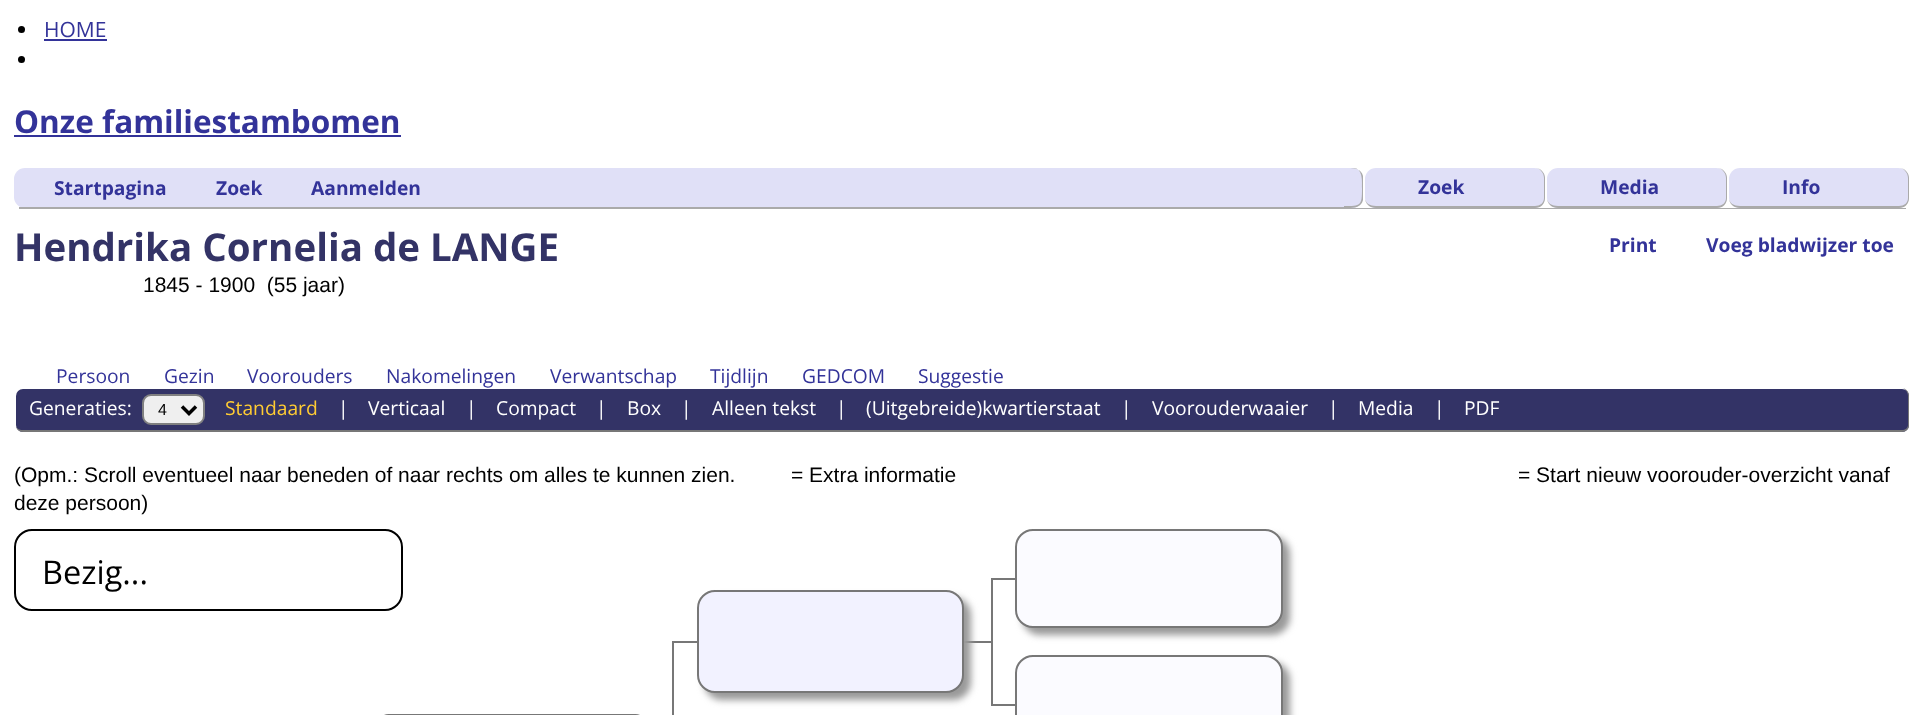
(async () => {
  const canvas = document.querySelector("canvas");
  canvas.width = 1924;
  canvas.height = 715;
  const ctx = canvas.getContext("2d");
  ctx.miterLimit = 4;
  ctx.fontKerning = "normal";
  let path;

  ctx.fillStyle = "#ffffff";
  ctx.fillRect(0, 0, 1924, 715);
  ctx.fillStyle = "#000000";
  ctx.beginPath();
  ctx.arc(21.5, 29.5, 3.5, 0, Math.PI * 2);
  ctx.fill();
  ctx.fillStyle = "#333399";
  ctx.fillRect(44, 39, 63, 2);
  ctx.fillStyle = "#000000";
  ctx.beginPath();
  ctx.arc(21.5, 59.5, 3.5, 0, Math.PI * 2);
  ctx.fill();
  ctx.fillStyle = "#333399";
  ctx.fillRect(14, 135, 387, 2);
  ctx.fillStyle = "#e0e0f7";
  ctx.beginPath();
  ctx.roundRect(14, 168, 1897, 40, 11);
  ctx.fill();
  ctx.fillStyle = "#aaaaaa";
  ctx.fillRect(19, 207, 1887, 2);
  ctx.fillStyle = "#ffffff";
  ctx.fillRect(1352, 168, 559, 40);
  ctx.fillStyle = "#e0e0f7";
  ctx.beginPath();
  ctx.roundRect(1344, 168, 19, 40, [0, 11, 11, 0]);
  ctx.fill();
  ctx.fillStyle = "#aaaaaa";
  path = new Path2D("M1344 168C1351 168 1361 167 1363 176V200C1361 209 1351 208 1344 208ZM1344 168H1355C1363 170 1362 182 1362 188C1362 206 1361 206 1344 206Z");
  ctx.fill(path, "evenodd");
  ctx.fillStyle = "#e0e0f7";
  ctx.beginPath();
  ctx.roundRect(1365, 168, 180, 40, 11);
  ctx.fill();
  ctx.fillStyle = "#aaaaaa";
  path = new Path2D("M1376 168H1535C1541 168 1545 173 1545 178V198C1545 204 1541 208 1535 208H1376C1370 208 1365 204 1365 198V178C1365 173 1370 168 1376 168ZM1376 168H1535C1540 168 1544 173 1544 178V198C1544 203 1540 206 1535 206H1376C1370 206 1365 203 1365 198V178C1365 173 1370 168 1376 168Z");
  ctx.fill(path, "evenodd");
  ctx.fillStyle = "#e0e0f7";
  ctx.beginPath();
  ctx.roundRect(1547, 168, 180, 40, 11);
  ctx.fill();
  ctx.fillStyle = "#aaaaaa";
  path = new Path2D("M1558 168H1717C1723 168 1727 173 1727 178V198C1727 204 1723 208 1717 208H1558C1552 208 1547 204 1547 198V178C1547 173 1552 168 1558 168ZM1558 168H1717C1722 168 1726 173 1726 178V198C1726 203 1722 206 1717 206H1558C1552 206 1547 203 1547 198V178C1547 173 1552 168 1558 168Z");
  ctx.fill(path, "evenodd");
  ctx.fillStyle = "#e0e0f7";
  ctx.beginPath();
  ctx.roundRect(1729, 168, 180, 40, 11);
  ctx.fill();
  ctx.fillStyle = "#aaaaaa";
  path = new Path2D("M1740 168H1899C1905 168 1909 173 1909 178V198C1909 204 1905 208 1899 208H1740C1734 208 1729 204 1729 198V178C1729 173 1734 168 1740 168ZM1740 168H1899C1904 168 1908 173 1908 178V198C1908 203 1904 206 1899 206H1740C1734 206 1729 203 1729 198V178C1729 173 1734 168 1740 168Z");
  ctx.fill(path, "evenodd");
  ctx.fillStyle = "#333366";
  ctx.beginPath();
  ctx.roundRect(16, 389, 1893, 43, 7);
  ctx.fill();
  ctx.fillStyle = "#777777";
  path = new Path2D("M23 388H1902C1906 388 1909 392 1909 396V425C1909 429 1906 432 1902 432H23C19 432 16 429 16 425V396C16 392 19 388 23 388ZM23 388H1902C1905 388 1908 392 1908 396V425C1908 428 1905 430 1902 430H23C19 430 16 428 16 425V396C16 392 19 388 23 388Z");
  ctx.fill(path, "evenodd");
  ctx.fillStyle = "#efefef";
  ctx.beginPath();
  ctx.roundRect(143, 395, 61, 29, 8);
  ctx.fill();
  ctx.strokeStyle = "#808080";
  ctx.lineWidth = 2;
  ctx.stroke();
  path = new Path2D("M182 406.5L189 413.5L196 406.5");
  ctx.strokeStyle = "#000000";
  ctx.lineWidth = 3.5;
  ctx.stroke(path);
  ctx.beginPath();
  ctx.roundRect(15, 530, 387, 80, 17);
  ctx.lineWidth = 2;
  ctx.stroke();
  ctx.fillStyle = "#777777";
  ctx.fillRect(991, 578, 29, 2);
  ctx.fillStyle = "#999999";
  ctx.filter = "blur(3.5px)";
  ctx.beginPath();
  ctx.roundRect(1022, 536, 268, 99, 18);
  ctx.fill();
  ctx.filter = "none";
  ctx.fillStyle = "#fbfbff";
  ctx.beginPath();
  ctx.roundRect(1016, 530, 266, 97, 17);
  ctx.fill();
  ctx.strokeStyle = "#777777";
  ctx.stroke();
  ctx.fillStyle = "#777777";
  ctx.fillRect(672, 641, 30, 2);
  ctx.fillRect(963, 641, 28, 2);
  ctx.fillStyle = "#999999";
  ctx.filter = "blur(3.5px)";
  ctx.beginPath();
  ctx.roundRect(704, 597, 267, 103, 18);
  ctx.fill();
  ctx.filter = "none";
  ctx.fillStyle = "#f2f2ff";
  ctx.beginPath();
  ctx.roundRect(698, 591, 265, 101, 17);
  ctx.fill();
  ctx.stroke();
  for (const [x, y, w, h, color] of [
    [991, 578, 2, 64, "#777777"],
    [672, 641, 2, 74, "#777777"],
    [991, 704, 29, 2, "#777777"],
    [991, 642, 2, 63, "#777777"],
  ]) {
    ctx.fillStyle = color;
    ctx.fillRect(x, y, w, h);
  }
  ctx.fillStyle = "#999999";
  ctx.filter = "blur(3.5px)";
  ctx.beginPath();
  ctx.roundRect(1022, 662, 268, 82, 18);
  ctx.fill();
  ctx.filter = "none";
  ctx.fillStyle = "#fbfbff";
  ctx.beginPath();
  ctx.roundRect(1016, 656, 266, 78, 17);
  ctx.fill();
  ctx.stroke();
  ctx.beginPath();
  ctx.roundRect(379, 715, 266, 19, 17);
  ctx.stroke();
  ctx.font = "21px Open Sans";
  ctx.fillStyle = "#333399";
  ctx.fillText("HOME", 44, 37);
  ctx.font = "bold 31.5px Open Sans";
  ctx.fillText("Onze familiestambomen", 14, 133);
  ctx.font = "bold 19.25px Open Sans";
  for (const [text, x, y] of [
    ["Startpagina", 54, 195],
    ["Zoek", 216, 195],
    ["Aanmelden", 311, 195],
    ["Zoek", 1418, 194],
    ["Media", 1600, 194],
    ["Info", 1782, 194],
  ]) {
    ctx.fillText(text, x, y);
  }
  ctx.font = "bold 38.5px Open Sans";
  ctx.fillStyle = "#333366";
  ctx.fillText("Hendrika Cornelia de LANGE", 14, 261);
  ctx.font = "bold 19.25px Open Sans";
  ctx.fillStyle = "#333399";
  ctx.fillText("Print", 1609, 252);
  ctx.fillText("Voeg bladwijzer toe", 1706, 252);
  ctx.font = "21px Liberation Sans";
  ctx.fillStyle = "#000000";
  ctx.fillText("1845 - 1900  (55 jaar)", 143, 292);
  ctx.font = "19.25px Open Sans";
  ctx.fillStyle = "#333399";
  for (const [text, x, y] of [
    ["Persoon", 56, 383],
    ["Gezin", 164, 383],
    ["Voorouders", 247, 383],
    ["Nakomelingen", 386, 383],
    ["Verwantschap", 550, 383],
    ["Tijdlijn", 710, 383],
    ["GEDCOM", 802, 383],
    ["Suggestie", 918, 383],
  ]) {
    ctx.fillText(text, x, y);
  }
  ctx.fillStyle = "#ffffff";
  ctx.fillText("Generaties:", 29, 415);
  ctx.font = "16px Liberation Sans";
  ctx.fillStyle = "#000000";
  ctx.fillText("4", 158, 415);
  ctx.font = "19.25px Open Sans";
  ctx.fillStyle = "#ffcc33";
  ctx.fillText("Standaard", 225, 415);
  ctx.fillStyle = "#ffffff";
  for (const [text, x, y] of [
    ["|", 338, 415],
    ["Verticaal", 368, 415],
    ["|", 466, 415],
    ["Compact", 496, 415],
    ["|", 596, 415],
    ["Box", 627, 415],
    ["|", 681, 415],
    ["Alleen tekst", 712, 415],
    ["|", 836, 415],
    ["(Uitgebreide)kwartierstaat", 866, 415],
    ["|", 1121, 415],
    ["Voorouderwaaier", 1152, 415],
    ["|", 1328, 415],
    ["Media", 1358, 415],
    ["|", 1434, 415],
    ["PDF", 1464, 415],
  ]) {
    ctx.fillText(text, x, y);
  }
  ctx.font = "21px Liberation Sans";
  ctx.fillStyle = "#000000";
  for (const [text, x, y] of [
    ["(Opm.: Scroll eventueel naar beneden of naar rechts om alles te kunnen zien.", 14, 482],
    ["= Extra informatie", 791, 482],
    ["= Start nieuw voorouder-overzicht vanaf", 1518, 482],
    ["deze persoon)", 14, 510],
  ]) {
    ctx.fillText(text, x, y);
  }
  ctx.font = "32.5px Open Sans";
  ctx.fillText("Bezig...", 42, 584);
})();
